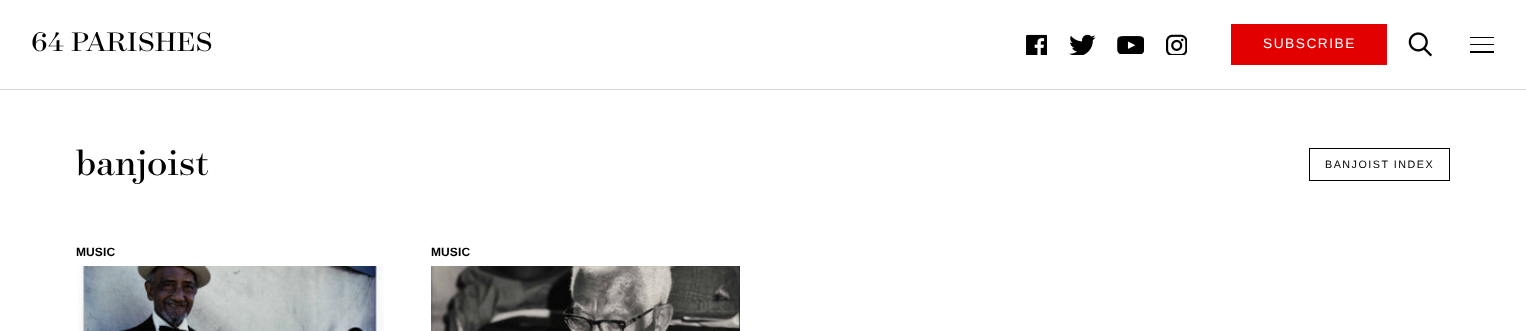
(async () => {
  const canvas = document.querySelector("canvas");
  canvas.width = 1526;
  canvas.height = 331;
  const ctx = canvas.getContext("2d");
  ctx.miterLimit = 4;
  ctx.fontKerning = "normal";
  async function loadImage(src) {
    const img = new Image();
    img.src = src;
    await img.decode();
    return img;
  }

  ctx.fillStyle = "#ffffff";
  ctx.fillRect(0, 0, 1526, 331);
  ctx.fillStyle = "#d8d8d8";
  ctx.fillRect(0, 89, 1526, 1);
  ctx.drawImage(await loadImage("img/1.png"), 1026, 34, 21, 21);
  ctx.drawImage(await loadImage("img/2.png"), 1069, 34, 27, 21);
  ctx.drawImage(await loadImage("img/3.png"), 1117, 36, 27, 18);
  ctx.drawImage(await loadImage("img/4.png"), 1166, 34, 21, 21);
  ctx.fillStyle = "#e20000";
  ctx.fillRect(1231, 24, 156, 41);
  ctx.drawImage(await loadImage("img/5.png"), 1408, 32, 25, 25);
  for (const [x, y, w, h, color] of [
    [1470, 37, 24, 1, "#000000"],
    [1470, 44, 24, 1, "#000000"],
    [1470, 51, 24, 2, "#000000"],
  ]) {
    ctx.fillStyle = color;
    ctx.fillRect(x, y, w, h);
  }
  ctx.strokeStyle = "#000000";
  ctx.strokeRect(1309.5, 148.5, 140, 32);
  ctx.drawImage(await loadImage("img/6.png"), 78, 266, 306, 65);
  ctx.drawImage(await loadImage("img/7.png"), 431, 266, 309, 65);
  ctx.letterSpacing = "0.1px";
  ctx.font = "30.5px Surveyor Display";
  ctx.fillText("64 PARISHES", 31, 51);
  ctx.letterSpacing = "1.5px";
  ctx.font = "13.75px Liberation Sans";
  ctx.fillStyle = "#ffffff";
  ctx.fillText("SUBSCRIBE", 1263, 48);
  ctx.letterSpacing = "0.1px";
  ctx.font = "40px Surveyor Display";
  ctx.fillStyle = "#000000";
  ctx.fillText("banjoist", 76, 175);
  ctx.letterSpacing = "1.5px";
  ctx.font = "10.75px Liberation Sans";
  ctx.fillText("BANJOIST INDEX", 1325, 168);
  ctx.letterSpacing = "0.1px";
  ctx.font = "bold 12px Liberation Sans";
  ctx.fillText("MUSIC", 76, 256);
  ctx.fillText("MUSIC", 431, 256);
})();
